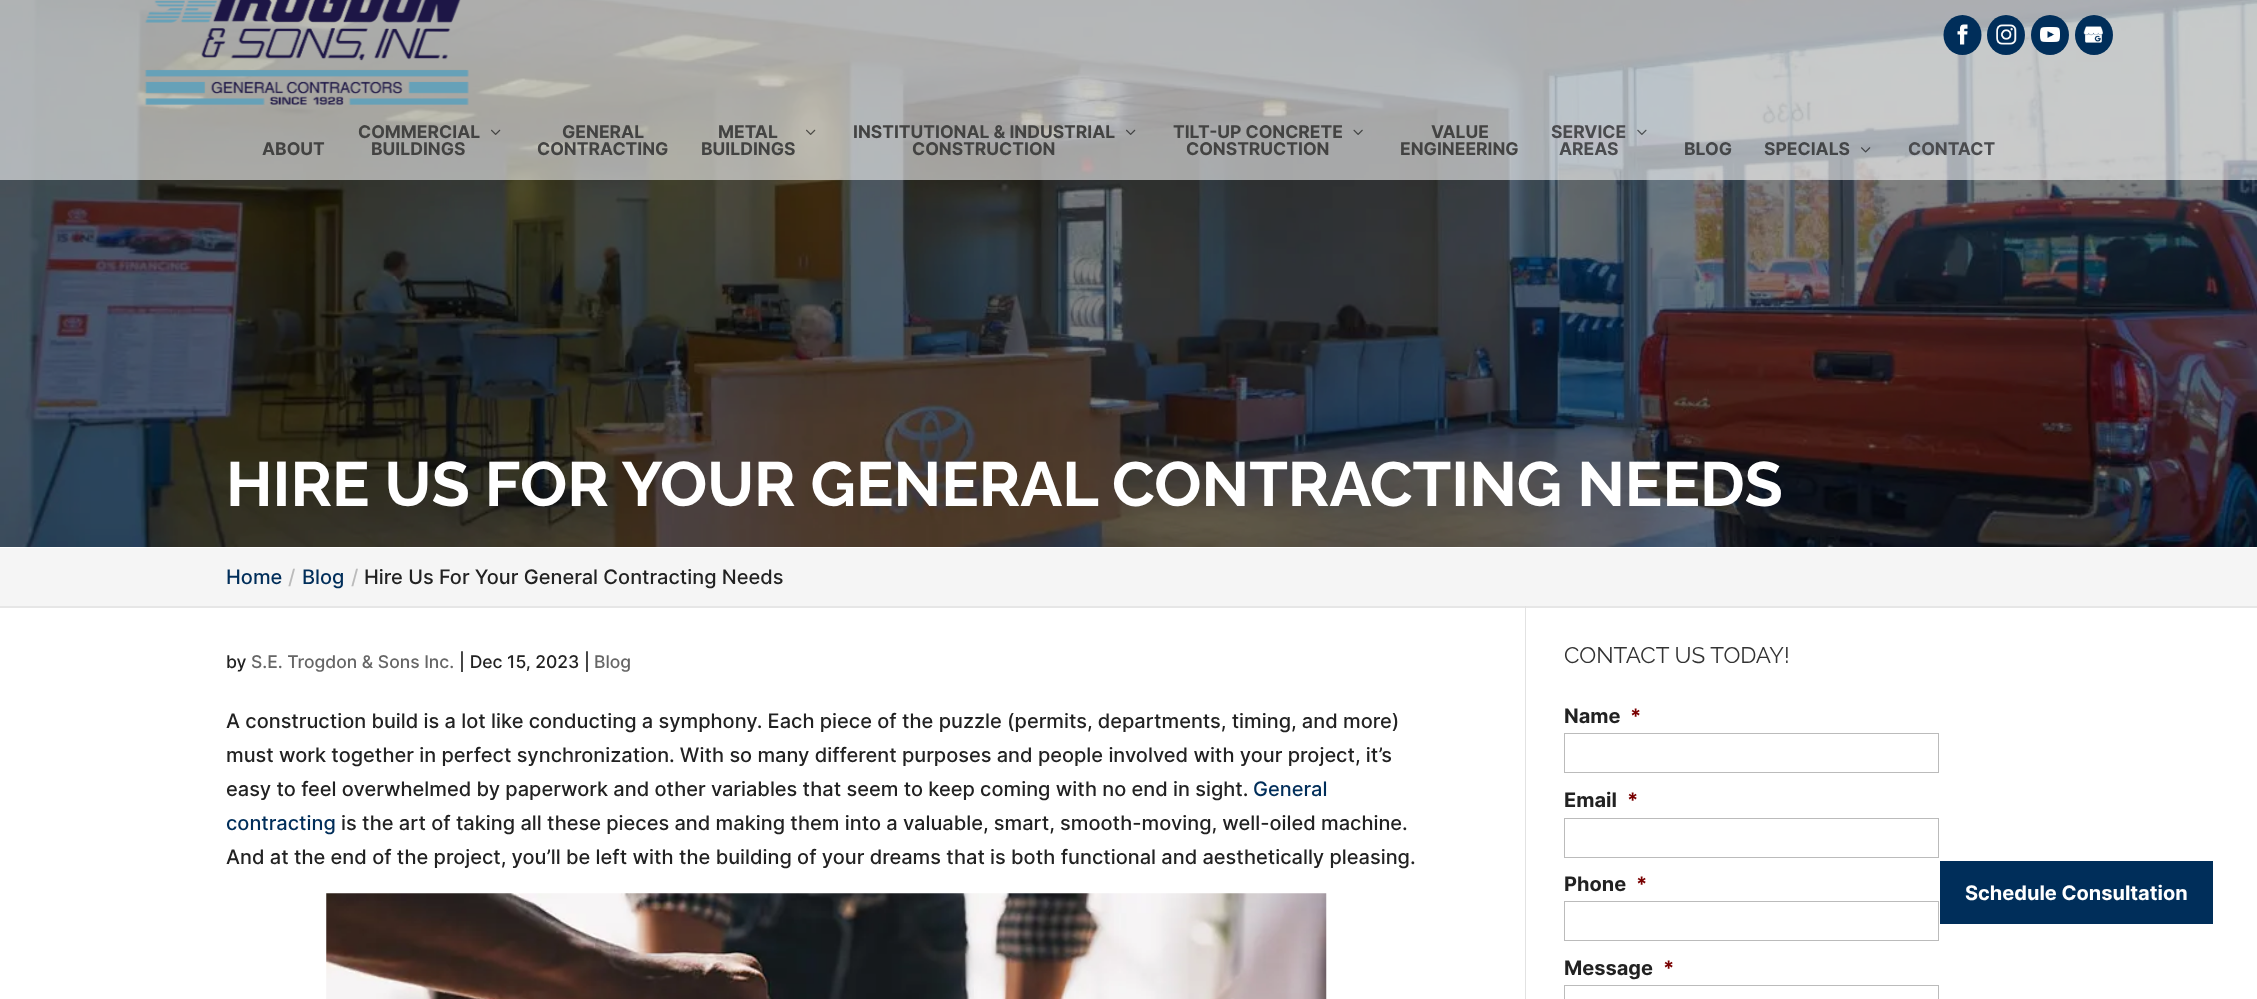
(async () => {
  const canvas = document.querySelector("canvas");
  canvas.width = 2257;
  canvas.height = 999;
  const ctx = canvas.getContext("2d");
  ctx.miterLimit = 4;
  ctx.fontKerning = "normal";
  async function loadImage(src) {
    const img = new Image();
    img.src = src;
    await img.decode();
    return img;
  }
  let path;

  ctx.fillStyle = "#ffffff";
  ctx.fillRect(0, 0, 2257, 999);
  ctx.drawImage(await loadImage("img/12.png"), 0, 0, 2257, 547);
  ctx.fillStyle = "rgba(255, 255, 255, 0.58)";
  ctx.fillRect(0, 0, 2257, 180);
  ctx.drawImage(await loadImage("img/1.png"), 144, 0, 325, 105);
  ctx.fillStyle = "#002e5a";
  ctx.beginPath();
  ctx.ellipse(1962.5, 35, 19, 20, 0, 0, Math.PI * 2);
  ctx.fill();
  ctx.drawImage(await loadImage("img/2.png"), 1957, 24, 11, 21);
  ctx.beginPath();
  ctx.ellipse(2006, 35, 19, 20, 0, 0, Math.PI * 2);
  ctx.fill();
  ctx.drawImage(await loadImage("img/3.png"), 1996, 24, 21, 21);
  ctx.beginPath();
  ctx.ellipse(2050, 35, 19, 20, 0, 0, Math.PI * 2);
  ctx.fill();
  ctx.drawImage(await loadImage("img/4.png"), 2040, 27, 20, 15);
  ctx.beginPath();
  ctx.ellipse(2094, 35, 19, 20, 0, 0, Math.PI * 2);
  ctx.fill();
  ctx.drawImage(await loadImage("img/5.png"), 2083, 26, 20, 17);
  ctx.drawImage(await loadImage("img/6.png"), 491, 129, 10, 6);
  ctx.drawImage(await loadImage("img/7.png"), 806, 129, 10, 6);
  ctx.drawImage(await loadImage("img/8.png"), 1126, 129, 10, 6);
  ctx.drawImage(await loadImage("img/9.png"), 1353, 129, 10, 6);
  ctx.drawImage(await loadImage("img/10.png"), 1637, 129, 10, 6);
  ctx.drawImage(await loadImage("img/11.png"), 1861, 147, 10, 6);
  ctx.fillStyle = "#e6e6e6";
  path = new Path2D("M0 606V608H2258V549V606Z");
  ctx.fill(path);
  ctx.fillStyle = "#f5f5f5";
  ctx.fillRect(0, 548, 2257, 58);
  ctx.fillStyle = "#e2e2e2";
  ctx.fillRect(1525, 606, 1, 393);
  ctx.drawImage(await loadImage("img/13.png"), 326, 893, 1001, 106);
  ctx.strokeStyle = "#bbbbbb";
  ctx.strokeRect(1564.5, 733.5, 374, 39);
  ctx.strokeRect(1564.5, 818.5, 374, 39);
  ctx.strokeRect(1564.5, 901.5, 374, 39);
  ctx.strokeRect(1564.5, 985.5, 374, 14);
  ctx.fillStyle = "#002e5a";
  ctx.fillRect(1940, 861, 273, 63);
  ctx.font = "bold 17.5px Inter";
  ctx.fillStyle = "#434342";
  for (const [text, x, y] of [
    ["ABOUT", 262, 155],
    ["COMMERCIAL", 358, 138],
    ["BUILDINGS", 371, 155],
    ["GENERAL", 562, 138],
    ["CONTRACTING", 537, 155],
    ["METAL", 718, 138],
    ["BUILDINGS", 701, 155],
    ["INSTITUTIONAL & INDUSTRIAL", 853, 138],
    ["CONSTRUCTION", 912, 155],
    ["TILT-UP CONCRETE", 1173, 138],
    ["CONSTRUCTION", 1186, 155],
    ["VALUE", 1431, 138],
    ["ENGINEERING", 1400, 155],
  ]) {
    ctx.fillText(text, x, y);
  }
  ctx.fillStyle = "#4a4b4e";
  ctx.fillText("SERVICE", 1551, 138);
  ctx.fillText("AREAS", 1559, 155);
  ctx.fillStyle = "#444648";
  ctx.fillText("BLOG", 1684, 155);
  ctx.fillText("SPECIALS", 1764, 155);
  ctx.fillStyle = "#4a4b4e";
  ctx.fillText("CONTACT", 1908, 155);
  ctx.font = "bold 62.5px Raleway";
  ctx.fillStyle = "#ffffff";
  ctx.fillText("HIRE US FOR YOUR GENERAL CONTRACTING NEEDS", 226, 506);
  ctx.font = "500 20px Inter";
  ctx.fillStyle = "#002e5a";
  ctx.fillText("Home", 226, 584);
  ctx.fillStyle = "#bbbbbb";
  ctx.fillText("/", 288, 584);
  ctx.fillStyle = "#002e5a";
  ctx.fillText("Blog", 302, 584);
  ctx.fillStyle = "#bbbbbb";
  ctx.fillText("/", 351, 584);
  ctx.fillStyle = "#222222";
  ctx.fillText("Hire Us For Your General Contracting Needs", 364, 584);
  ctx.font = "500 17.5px Inter";
  ctx.fillText("by", 226, 668);
  ctx.fillStyle = "#666666";
  ctx.fillText("S.E. Trogdon & Sons Inc.", 251, 668);
  ctx.fillStyle = "#222222";
  ctx.fillText("| Dec 15, 2023 |", 459, 668);
  ctx.fillStyle = "#666666";
  ctx.fillText("Blog", 594, 668);
  ctx.font = "500 20px Inter";
  ctx.fillStyle = "#222222";
  for (const [text, x, y] of [
    ["A construction build is a lot like conducting a symphony. Each piece of the puzzle (permits, departments, timing, and more)", 226, 728],
    ["must work together in perfect synchronization. With so many different purposes and people involved with your project, it’s", 226, 762],
    ["easy to feel overwhelmed by paperwork and other variables that seem to keep coming with no end in sight.", 226, 796],
  ]) {
    ctx.fillText(text, x, y);
  }
  ctx.fillStyle = "#002e5a";
  ctx.fillText("General", 1253, 796);
  ctx.fillText("contracting", 226, 830);
  ctx.fillStyle = "#222222";
  ctx.fillText("is the art of taking all these pieces and making them into a valuable, smart, smooth-moving, well-oiled machine.", 341, 830);
  ctx.fillText("And at the end of the project, you’ll be left with the building of your dreams that is both functional and aesthetically pleasing.", 226, 864);
  ctx.font = "22.5px Raleway";
  ctx.fillStyle = "#333333";
  ctx.fillText("CONTACT US TODAY!", 1564, 663);
  ctx.font = "bold 20px Inter";
  ctx.fillStyle = "#222222";
  ctx.fillText("Name", 1564, 723);
  ctx.fillStyle = "#790000";
  ctx.fillText("*", 1630, 723);
  ctx.fillStyle = "#222222";
  ctx.fillText("Email", 1564, 807);
  ctx.fillStyle = "#790000";
  ctx.fillText("*", 1627, 807);
  ctx.fillStyle = "#222222";
  ctx.fillText("Phone", 1564, 891);
  ctx.fillStyle = "#790000";
  ctx.fillText("*", 1636, 891);
  ctx.fillStyle = "#222222";
  ctx.fillText("Message", 1564, 975);
  ctx.fillStyle = "#790000";
  ctx.fillText("*", 1663, 975);
  ctx.fillStyle = "#ffffff";
  ctx.fillText("Schedule Consultation", 1965, 900);
})();
